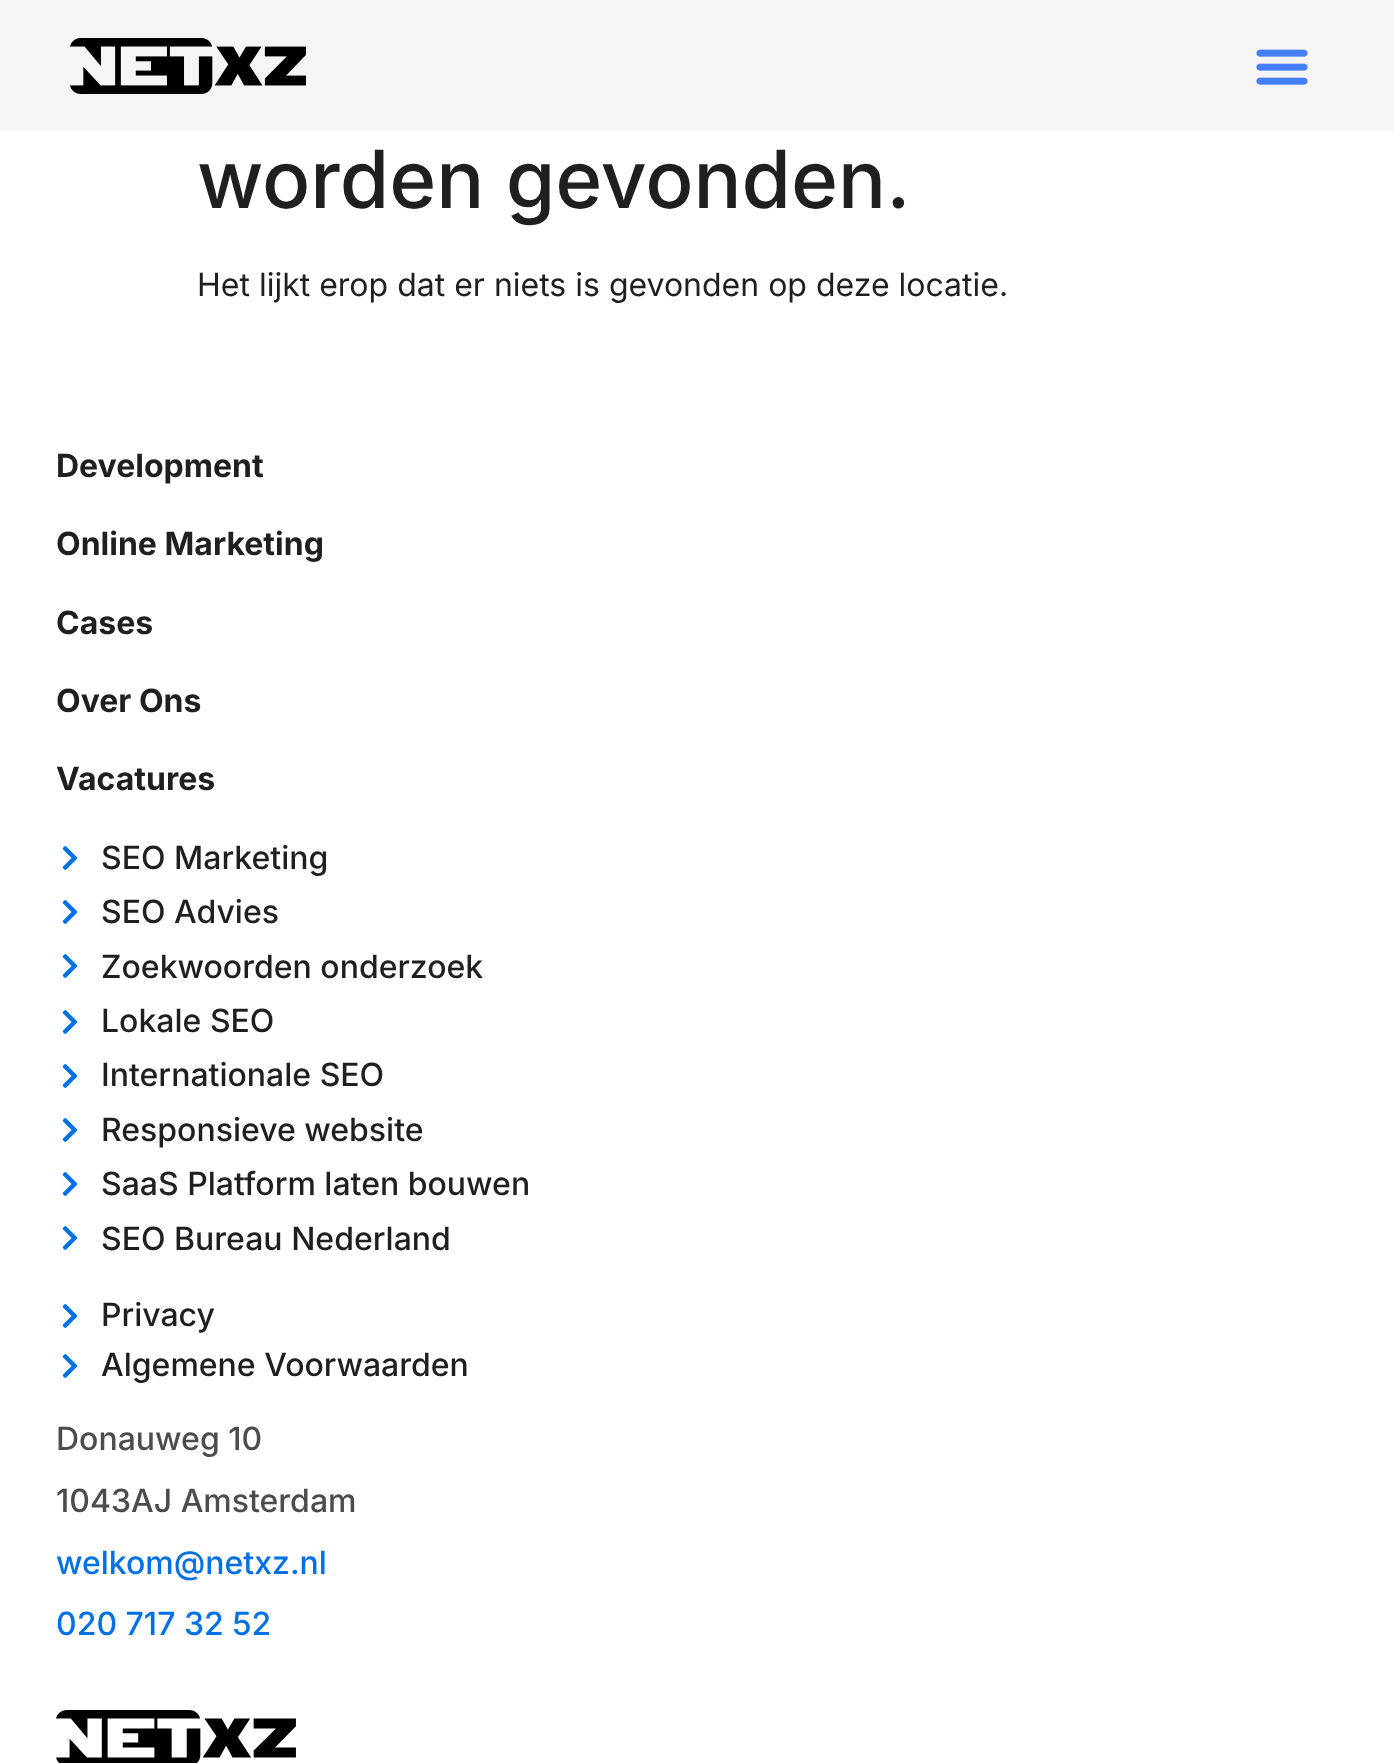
(async () => {
  const canvas = document.querySelector("canvas");
  canvas.width = 1394;
  canvas.height = 1763;
  const ctx = canvas.getContext("2d");
  ctx.miterLimit = 4;
  ctx.fontKerning = "normal";
  async function loadImage(src) {
    const img = new Image();
    img.src = src;
    await img.decode();
    return img;
  }

  ctx.fillStyle = "#ffffff";
  ctx.fillRect(0, 0, 1394, 1763);
  ctx.fillStyle = "#f5f5f5";
  ctx.fillRect(0, 0, 1394, 130);
  ctx.drawImage(await loadImage("img/1.png"), 70, 38, 236, 56);
  ctx.drawImage(await loadImage("img/2.png"), 1256, 49, 52, 36);
  ctx.drawImage(await loadImage("img/3.png"), 62, 846, 16, 24);
  ctx.drawImage(await loadImage("img/3.png"), 62, 900, 16, 24);
  ctx.drawImage(await loadImage("img/3.png"), 62, 954, 16, 24);
  ctx.drawImage(await loadImage("img/3.png"), 62, 1010, 16, 24);
  ctx.drawImage(await loadImage("img/3.png"), 62, 1064, 16, 24);
  ctx.drawImage(await loadImage("img/3.png"), 62, 1118, 16, 24);
  ctx.drawImage(await loadImage("img/3.png"), 62, 1172, 16, 24);
  ctx.drawImage(await loadImage("img/3.png"), 62, 1226, 16, 24);
  ctx.drawImage(await loadImage("img/3.png"), 62, 1304, 16, 24);
  ctx.drawImage(await loadImage("img/3.png"), 62, 1354, 16, 24);
  ctx.drawImage(await loadImage("img/4.png"), 56, 1710, 240, 53);
  ctx.font = "500 80px Inter";
  ctx.fillStyle = "#1f1f1f";
  ctx.fillText("worden gevonden.", 197, 208);
  ctx.font = "32px Inter";
  ctx.fillText("Het lijkt erop dat er niets is gevonden op deze locatie.", 197, 296);
  ctx.font = "bold 32px Inter";
  for (const [text, x, y] of [
    ["Development", 56, 477],
    ["Online Marketing", 56, 555],
    ["Cases", 56, 634],
    ["Over Ons", 56, 712],
    ["Vacatures", 56, 790],
  ]) {
    ctx.fillText(text, x, y);
  }
  ctx.font = "500 32px Inter";
  for (const [text, x, y] of [
    ["SEO Marketing", 101, 869],
    ["SEO Advies", 101, 923],
    ["Zoekwoorden onderzoek", 101, 978],
    ["Lokale SEO", 101, 1032],
    ["Internationale SEO", 101, 1086],
    ["Responsieve website", 101, 1141],
    ["SaaS Platform laten bouwen", 101, 1195],
    ["SEO Bureau Nederland", 101, 1250],
    ["Privacy", 101, 1326],
    ["Algemene Voorwaarden", 101, 1376],
  ]) {
    ctx.fillText(text, x, y);
  }
  ctx.fillStyle = "#4c4c4c";
  ctx.fillText("Donauweg 10", 56, 1450);
  ctx.fillText("1043AJ Amsterdam", 56, 1512);
  ctx.fillStyle = "#0071e3";
  ctx.fillText("welkom@netxz.nl", 56, 1574);
  ctx.fillText("020 717 32 52", 56, 1635);
})();
